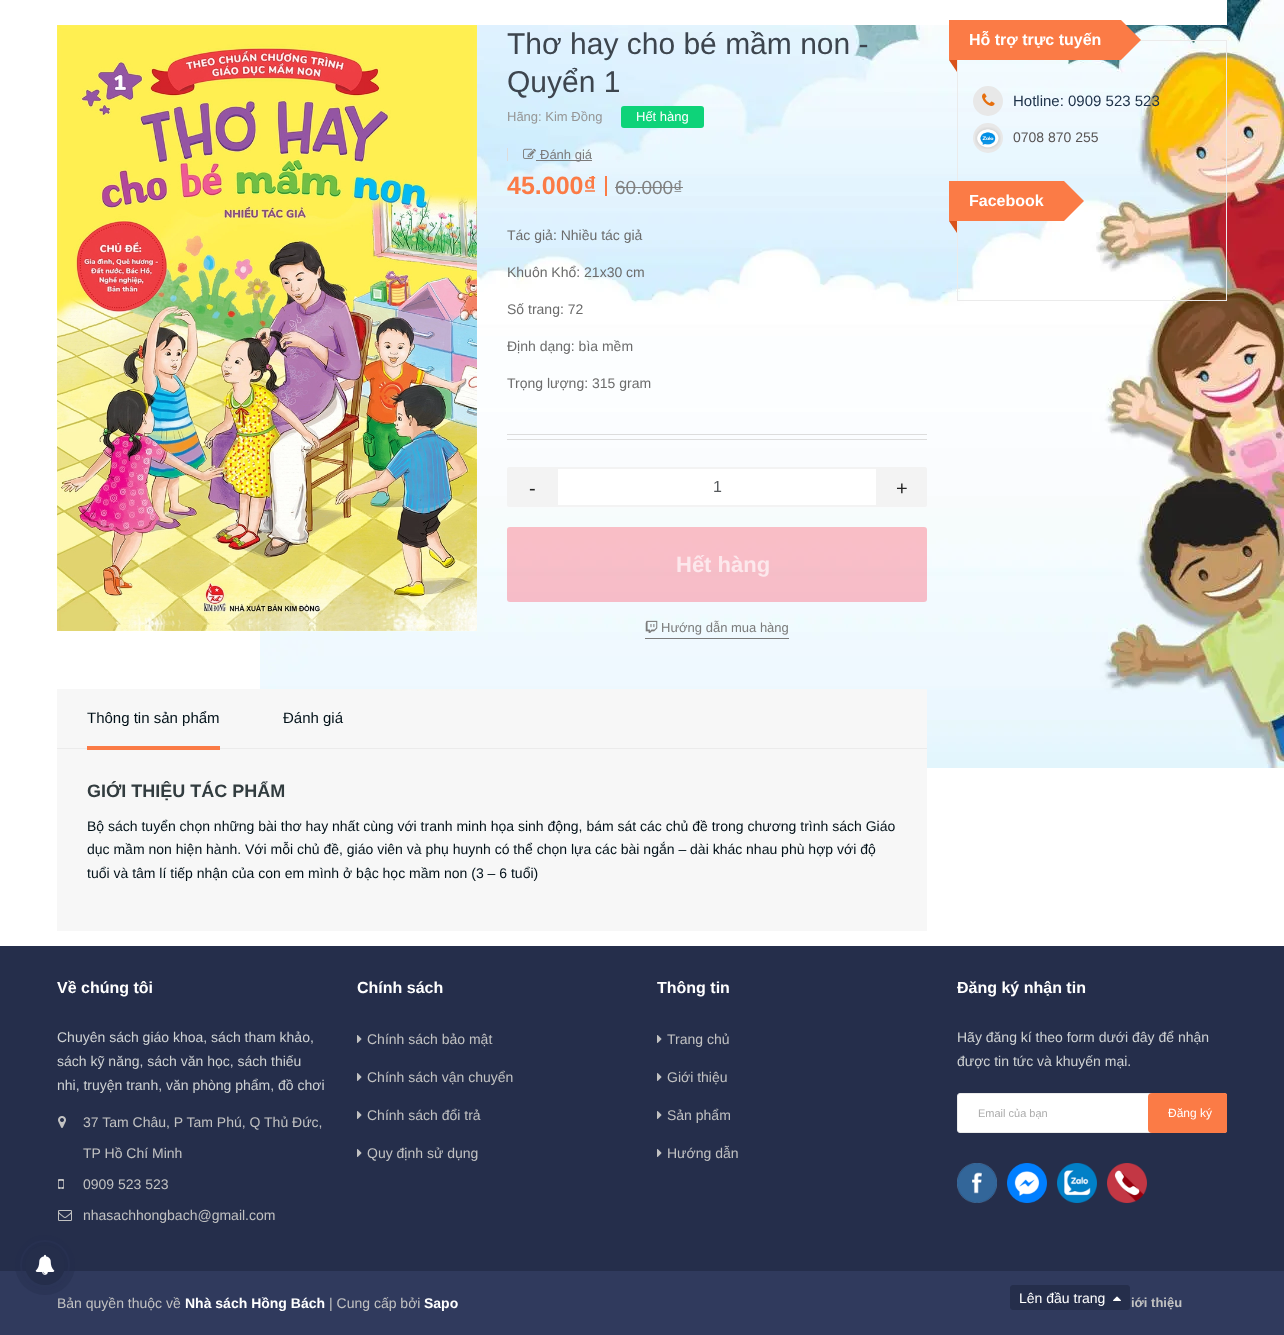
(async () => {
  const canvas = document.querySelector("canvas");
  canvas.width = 1284;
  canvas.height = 1335;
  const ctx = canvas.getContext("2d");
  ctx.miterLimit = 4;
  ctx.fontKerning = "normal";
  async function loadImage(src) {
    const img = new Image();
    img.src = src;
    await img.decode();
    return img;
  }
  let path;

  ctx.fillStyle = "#ffffff";
  ctx.fillRect(0, 0, 1284, 1335);
  ctx.drawImage(await loadImage("img/1.png"), 260, 0, 1024, 768);
  ctx.fillRect(260, 0, 967, 25);
  ctx.drawImage(await loadImage("img/2.png"), 57, 25, 420, 606);
  ctx.fillStyle = "#0ed379";
  ctx.beginPath();
  ctx.roundRect(621, 106, 83, 22, 3);
  ctx.fill();
  ctx.fillStyle = "#dddddd";
  ctx.fillRect(507, 148, 1, 13);
  ctx.drawImage(await loadImage("img/3.png"), 523, 148, 13, 11);
  for (const [x, y, w, h, color] of [
    [536, 160, 56, 1, "#7b7b7b"],
    [605, 176, 2, 20, "#fb7b46"],
    [615, 187, 68, 1, "#818181"],
    [507, 434, 420, 1, "#dddddd"],
    [507, 439, 420, 1, "#dddddd"],
  ]) {
    ctx.fillStyle = color;
    ctx.fillRect(x, y, w, h);
  }
  ctx.fillStyle = "#ffffff";
  ctx.beginPath();
  ctx.roundRect(507, 467, 420, 40, 4);
  ctx.fill();
  ctx.fillStyle = "#f3f3f3";
  ctx.beginPath();
  ctx.roundRect(507, 467, 49, 40, [3, 0, 0, 3]);
  ctx.fill();
  path = new Path2D("M510 467H556V507H510C508 507 507 506 507 504V470C507 468 508 467 510 467ZM510 468H556V506H510C509 506 508 505 508 504V470C508 469 509 468 510 468Z");
  ctx.fill(path, "evenodd");
  ctx.strokeStyle = "#f3f3f3";
  ctx.lineWidth = 2;
  ctx.strokeRect(557, 468, 320, 38);
  ctx.beginPath();
  ctx.roundRect(878, 467, 49, 40, [0, 3, 3, 0]);
  ctx.fill();
  path = new Path2D("M878 467H924C926 467 927 468 927 470V504C927 506 926 507 924 507H878ZM878 468H924C925 468 926 469 926 470V504C926 505 925 506 924 506H878Z");
  ctx.fill(path, "evenodd");
  ctx.fillStyle = "rgba(255, 65, 87, 0.33)";
  ctx.beginPath();
  ctx.roundRect(507, 527, 420, 75, 3);
  ctx.fill();
  ctx.drawImage(await loadImage("img/4.png"), 645, 620, 13, 13);
  for (const [x, y, w, h, color] of [
    [645, 638, 144, 1, "#7b7b7b"],
    [57, 689, 870, 59, "#f7f7f7"],
    [57, 748, 870, 1, "#ebebeb"],
    [57, 749, 870, 182, "#f7f7f7"],
    [87, 746, 133, 4, "#fb7b46"],
    [949, 20, 172, 40, "#fb7b46"],
    [1140, 40, 87, 1, "#ebebeb"],
  ]) {
    ctx.fillStyle = color;
    ctx.fillRect(x, y, w, h);
  }
  ctx.fillStyle = "#fb7b46";
  path = new Path2D("M1121 60V20L1141 40Z");
  ctx.fill(path);
  ctx.fillStyle = "#d9521a";
  path = new Path2D("M957 60V72L949 60Z");
  ctx.fill(path);
  ctx.fillStyle = "#ebebeb";
  ctx.fillRect(1226, 40, 1, 261);
  ctx.fillRect(957, 60, 1, 121);
  ctx.fillStyle = "#e8e8e8";
  ctx.beginPath();
  ctx.arc(988, 101, 15, 0, Math.PI * 2);
  ctx.fill();
  ctx.drawImage(await loadImage("img/5.png"), 982, 93, 13, 13);
  ctx.beginPath();
  ctx.arc(988, 138, 15, 0, Math.PI * 2);
  ctx.fill();
  ctx.drawImage(await loadImage("img/6.png"), 975, 127, 26, 22);
  ctx.fillStyle = "#fb7b46";
  ctx.fillRect(949, 181, 115, 40);
  path = new Path2D("M1064 221V181L1084 201Z");
  ctx.fill(path);
  ctx.fillStyle = "#d9521a";
  path = new Path2D("M957 221V233L949 221Z");
  ctx.fill(path);
  for (const [x, y, w, h, color] of [
    [957, 300, 270, 1, "#ebebeb"],
    [957, 221, 1, 80, "#ebebeb"],
    [958, 221, 1, 10, "#ebebeb"],
    [0, 946, 1284, 325, "#252e4b"],
    [0, 1271, 1284, 64, "#303a5d"],
  ]) {
    ctx.fillStyle = color;
    ctx.fillRect(x, y, w, h);
  }
  ctx.beginPath();
  ctx.arc(45, 1265, 24, 0, Math.PI * 2);
  ctx.strokeStyle = "rgba(45, 56, 92, 0.5)";
  ctx.stroke();
  ctx.fillStyle = "rgba(37, 46, 75, 0.38)";
  ctx.beginPath();
  ctx.arc(45, 1265, 30, 0, Math.PI * 2);
  ctx.fill();
  ctx.fillStyle = "#252e4b";
  ctx.beginPath();
  ctx.arc(45, 1265, 20, 0, Math.PI * 2);
  ctx.fill();
  ctx.drawImage(await loadImage("img/7.png"), 35, 1254, 20, 21);
  ctx.drawImage(await loadImage("img/8.png"), 58, 1116, 8, 12);
  ctx.drawImage(await loadImage("img/9.png"), 58, 1179, 6, 10);
  ctx.drawImage(await loadImage("img/10.png"), 58, 1210, 14, 11);
  ctx.drawImage(await loadImage("img/11.png"), 357, 1035, 5, 8);
  ctx.drawImage(await loadImage("img/11.png"), 357, 1073, 5, 8);
  ctx.drawImage(await loadImage("img/11.png"), 357, 1111, 5, 8);
  ctx.drawImage(await loadImage("img/11.png"), 357, 1149, 5, 8);
  ctx.drawImage(await loadImage("img/11.png"), 657, 1035, 5, 8);
  ctx.drawImage(await loadImage("img/11.png"), 657, 1073, 5, 8);
  ctx.drawImage(await loadImage("img/11.png"), 657, 1111, 5, 8);
  ctx.drawImage(await loadImage("img/11.png"), 657, 1149, 5, 8);
  ctx.fillStyle = "#ffffff";
  ctx.beginPath();
  ctx.roundRect(957.5, 1093.5, 269, 39, 2.5);
  ctx.fill();
  ctx.strokeStyle = "#ebebeb";
  ctx.lineWidth = 1;
  ctx.stroke();
  ctx.save();
  ctx.beginPath();
  ctx.rect(957, 966, 270, 237);
  ctx.clip();
  ctx.fillStyle = "#fb7b46";
  ctx.beginPath();
  ctx.roundRect(1148, 1093, 80, 40, 4);
  ctx.fill();
  ctx.restore();
  ctx.drawImage(await loadImage("img/12.png"), 957, 1163, 40, 40);
  ctx.drawImage(await loadImage("img/13.png"), 1007, 1163, 40, 40);
  ctx.drawImage(await loadImage("img/14.png"), 1057, 1163, 40, 40);
  ctx.drawImage(await loadImage("img/15.png"), 1107, 1163, 40, 40);
  ctx.fillStyle = "#252e4b";
  ctx.beginPath();
  ctx.roundRect(1010.5, 1285.5, 119, 24, 2.5);
  ctx.fill();
  ctx.strokeStyle = "#252e4b";
  ctx.stroke();
  ctx.drawImage(await loadImage("img/16.png"), 1113, 1296, 8, 5);
  ctx.font = "30px Liberation Sans";
  ctx.fillStyle = "#3d454e";
  ctx.fillText("Thơ hay cho bé mầm non -", 507, 54);
  ctx.fillText("Quyển 1", 507, 92);
  ctx.font = "13px Liberation Sans";
  ctx.fillStyle = "#969696";
  ctx.fillText("Hãng: Kim Đồng", 507, 121);
  ctx.fillStyle = "#ffffff";
  ctx.fillText("Hết hàng", 636, 121);
  ctx.fillStyle = "#7b7b7b";
  ctx.fillText("Đánh giá", 540, 159);
  ctx.font = "bold 25px Liberation Sans";
  ctx.fillStyle = "#fb7b46";
  ctx.fillText("45.000₫", 507, 194);
  ctx.font = "19px Liberation Sans";
  ctx.fillStyle = "#818181";
  ctx.fillText("60.000₫", 615, 194);
  ctx.font = "14px Liberation Sans";
  ctx.fillStyle = "#6b6b6b";
  for (const [text, x, y] of [
    ["Tác giả: Nhiều tác giả", 507, 240],
    ["Khuôn Khổ: 21x30 cm", 507, 277],
    ["Số trang: 72", 507, 314],
    ["Định dạng: bìa mềm", 507, 351],
    ["Trọng lượng: 315 gram", 507, 388],
  ]) {
    ctx.fillText(text, x, y);
  }
  ctx.font = "20px Liberation Sans";
  ctx.fillStyle = "#222222";
  ctx.fillText("-", 529, 495);
  ctx.font = "16px Liberation Sans";
  ctx.fillStyle = "#55595c";
  ctx.fillText("1", 713, 492);
  ctx.font = "20px Liberation Sans";
  ctx.fillStyle = "#222222";
  ctx.fillText("+", 896, 495);
  ctx.font = "bold 22px Liberation Sans";
  ctx.fillStyle = "#fce8ec";
  ctx.fillText("Hết hàng", 676, 572);
  ctx.font = "13px Liberation Sans";
  ctx.fillStyle = "#7b7b7b";
  ctx.fillText("Hướng dẫn mua hàng", 661, 632);
  ctx.font = "15px Liberation Sans";
  ctx.fillStyle = "#001018";
  ctx.fillText("Thông tin sản phẩm", 87, 723);
  ctx.fillText("Đánh giá", 283, 723);
  ctx.font = "bold 18px Liberation Sans";
  ctx.fillStyle = "#323c3f";
  ctx.fillText("GIỚI THIỆU TÁC PHẨM", 87, 797);
  ctx.font = "14px Liberation Sans";
  ctx.fillStyle = "#001018";
  for (const [text, x, y] of [
    ["Bộ sách tuyển chọn những bài thơ hay nhất cùng với tranh minh họa sinh động, bám sát các chủ đề trong chương trình sách Giáo", 87, 831],
    ["dục mầm non hiện hành. Với mỗi chủ đề, giáo viên và phụ huynh có thể chọn lựa các bài ngắn – dài khác nhau phù hợp với độ", 87, 854],
    ["tuổi và tâm lí tiếp nhận của con em mình ở bậc học mầm non (3 – 6 tuổi)", 87, 878],
  ]) {
    ctx.fillText(text, x, y);
  }
  ctx.font = "bold 16px Liberation Sans";
  ctx.fillStyle = "#ffffff";
  ctx.fillText("Hỗ trợ trực tuyến", 969, 45);
  ctx.font = "15px Liberation Sans";
  ctx.fillStyle = "#20344b";
  ctx.fillText("Hotline: 0909 523 523", 1013, 106);
  ctx.font = "14px Liberation Sans";
  ctx.fillStyle = "#575454";
  ctx.fillText("0708 870 255", 1013, 142);
  ctx.font = "bold 16px Liberation Sans";
  ctx.fillStyle = "#ffffff";
  ctx.fillText("Facebook", 969, 206);
  ctx.fillText("Về chúng tôi", 57, 993);
  ctx.font = "14px Liberation Sans";
  ctx.fillStyle = "#cfd2d3";
  for (const [text, x, y] of [
    ["Chuyên sách giáo khoa, sách tham khảo,", 57, 1042],
    ["sách kỹ năng, sách văn học, sách thiếu", 57, 1066],
    ["nhi, truyện tranh, văn phòng phẩm, đồ chơi", 57, 1090],
  ]) {
    ctx.fillText(text, x, y);
  }
  ctx.fillStyle = "#c2c2c2";
  for (const [text, x, y] of [
    ["37 Tam Châu, P Tam Phú, Q Thủ Đức,", 83, 1127],
    ["TP Hồ Chí Minh", 83, 1158],
    ["0909 523 523", 83, 1189],
    ["nhasachhongbach@gmail.com", 83, 1220],
  ]) {
    ctx.fillText(text, x, y);
  }
  ctx.font = "bold 16px Liberation Sans";
  ctx.fillStyle = "#ffffff";
  ctx.fillText("Chính sách", 357, 993);
  ctx.font = "14px Liberation Sans";
  ctx.fillStyle = "#c2c2c2";
  for (const [text, x, y] of [
    ["Chính sách bảo mật", 367, 1044],
    ["Chính sách vận chuyển", 367, 1082],
    ["Chính sách đổi trả", 367, 1120],
    ["Quy định sử dụng", 367, 1158],
  ]) {
    ctx.fillText(text, x, y);
  }
  ctx.font = "bold 16px Liberation Sans";
  ctx.fillStyle = "#ffffff";
  ctx.fillText("Thông tin", 657, 993);
  ctx.font = "14px Liberation Sans";
  ctx.fillStyle = "#c2c2c2";
  for (const [text, x, y] of [
    ["Trang chủ", 667, 1044],
    ["Giới thiệu", 667, 1082],
    ["Sản phẩm", 667, 1120],
    ["Hướng dẫn", 667, 1158],
  ]) {
    ctx.fillText(text, x, y);
  }
  ctx.font = "bold 16px Liberation Sans";
  ctx.fillStyle = "#ffffff";
  ctx.fillText("Đăng ký nhận tin", 957, 993);
  ctx.font = "14px Liberation Sans";
  ctx.fillStyle = "#cfd2d3";
  ctx.fillText("Hãy đăng kí theo form dưới đây để nhận", 957, 1042);
  ctx.fillText("được tin tức và khuyến mại.", 957, 1066);
  ctx.font = "11px Liberation Sans";
  ctx.fillStyle = "#acacac";
  ctx.fillText("Email của bạn", 978, 1117);
  ctx.font = "12px Liberation Sans";
  ctx.fillStyle = "#ffffff";
  ctx.fillText("Đăng ký", 1168, 1117);
  ctx.font = "14px Liberation Sans";
  ctx.fillText("Lên đầu trang", 1019, 1303);
  ctx.fillStyle = "#c2c2c2";
  ctx.fillText("Bản quyền thuộc về", 57, 1308);
  ctx.font = "bold 14px Liberation Sans";
  ctx.fillStyle = "#ffffff";
  ctx.fillText("Nhà sách Hồng Bách", 185, 1308);
  ctx.font = "14px Liberation Sans";
  ctx.fillStyle = "#c2c2c2";
  ctx.fillText("| Cung cấp bởi", 329, 1308);
  ctx.font = "bold 14px Liberation Sans";
  ctx.fillStyle = "#ffffff";
  ctx.fillText("Sapo", 424, 1308);
  ctx.font = "bold 13px Liberation Sans";
  ctx.fillStyle = "#c2c2c2";
  ctx.fillText("iới thiệu", 1131, 1307);
})();
